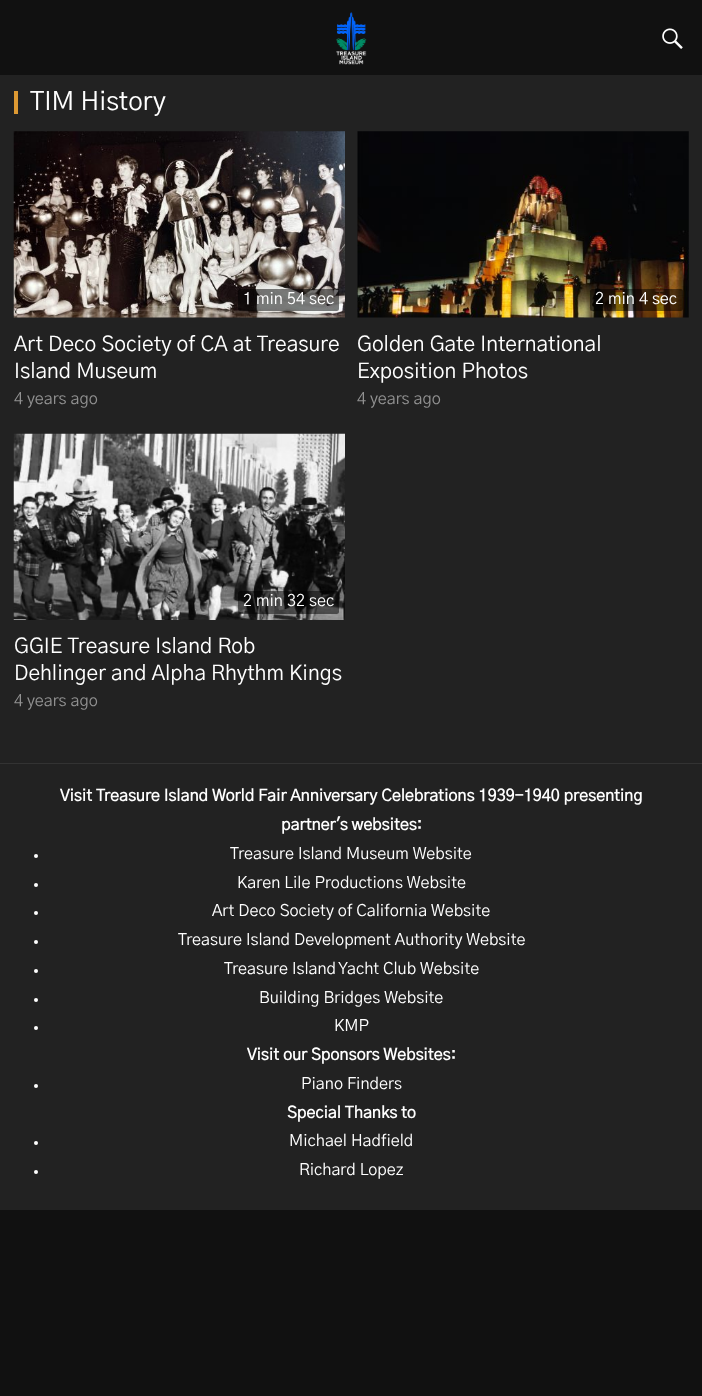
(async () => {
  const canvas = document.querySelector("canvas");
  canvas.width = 702;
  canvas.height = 1396;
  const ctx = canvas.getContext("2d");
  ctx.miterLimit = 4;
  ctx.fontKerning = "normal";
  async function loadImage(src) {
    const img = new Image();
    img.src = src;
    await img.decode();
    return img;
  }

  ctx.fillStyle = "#111111";
  ctx.fillRect(0, 0, 702, 1396);
  ctx.fillStyle = "#222222";
  ctx.fillRect(0, 75, 702, 1135);
  ctx.drawImage(await loadImage("img/1.png"), 336, 12, 31, 53);
  ctx.drawImage(await loadImage("img/2.png"), 662, 28, 21, 21);
  ctx.fillStyle = "#dd9933";
  ctx.fillRect(14, 91, 4, 23);
  ctx.drawImage(await loadImage("img/3.png"), 13, 131, 332, 187);
  ctx.fillStyle = "rgba(0, 0, 0, 0.5)";
  ctx.beginPath();
  ctx.roundRect(238, 289, 101, 22, 2.5);
  ctx.fill();
  ctx.drawImage(await loadImage("img/4.png"), 357, 131, 332, 187);
  ctx.beginPath();
  ctx.roundRect(590, 289, 93, 22, 2.5);
  ctx.fill();
  ctx.drawImage(await loadImage("img/5.png"), 13, 433, 332, 187);
  ctx.beginPath();
  ctx.roundRect(238, 591, 101, 23, 2.5);
  ctx.fill();
  ctx.fillStyle = "#333333";
  ctx.fillRect(0, 763, 702, 1);
  ctx.fillStyle = "#ffffff";
  ctx.beginPath();
  ctx.arc(36, 856, 2, 0, Math.PI * 2);
  ctx.fill();
  ctx.beginPath();
  ctx.arc(36, 885, 2, 0, Math.PI * 2);
  ctx.fill();
  ctx.beginPath();
  ctx.arc(36, 913, 2, 0, Math.PI * 2);
  ctx.fill();
  ctx.beginPath();
  ctx.arc(36, 942, 2, 0, Math.PI * 2);
  ctx.fill();
  ctx.beginPath();
  ctx.arc(36, 971, 2, 0, Math.PI * 2);
  ctx.fill();
  ctx.beginPath();
  ctx.arc(36, 1000, 2, 0, Math.PI * 2);
  ctx.fill();
  ctx.beginPath();
  ctx.arc(36, 1028, 2, 0, Math.PI * 2);
  ctx.fill();
  ctx.beginPath();
  ctx.arc(36, 1086, 2, 0, Math.PI * 2);
  ctx.fill();
  ctx.beginPath();
  ctx.arc(36, 1143, 2, 0, Math.PI * 2);
  ctx.fill();
  ctx.beginPath();
  ctx.arc(36, 1172, 2, 0, Math.PI * 2);
  ctx.fill();
  ctx.font = "26px 'Gothic A1'";
  ctx.fillText("TIM History", 30, 110);
  ctx.font = "16.25px 'Gothic A1'";
  ctx.fillText("1 min 54 sec", 243, 304);
  ctx.font = "21px 'Gothic A1'";
  ctx.fillText("Art Deco Society of CA at Treasure", 14, 351);
  ctx.fillText("Island Museum", 14, 378);
  ctx.font = "16.25px 'Gothic A1'";
  ctx.fillStyle = "#919191";
  ctx.fillText("4 years ago", 14, 404);
  ctx.fillStyle = "#ffffff";
  ctx.fillText("2 min 4 sec", 595, 304);
  ctx.font = "21px 'Gothic A1'";
  ctx.fillText("Golden Gate International", 357, 351);
  ctx.fillText("Exposition Photos", 357, 378);
  ctx.font = "16.25px 'Gothic A1'";
  ctx.fillStyle = "#919191";
  ctx.fillText("4 years ago", 357, 404);
  ctx.fillStyle = "#ffffff";
  ctx.fillText("2 min 32 sec", 243, 606);
  ctx.font = "21px 'Gothic A1'";
  ctx.fillText("GGIE Treasure Island Rob", 14, 653);
  ctx.fillText("Dehlinger and Alpha Rhythm Kings", 14, 680);
  ctx.font = "16.25px 'Gothic A1'";
  ctx.fillStyle = "#919191";
  ctx.fillText("4 years ago", 14, 706);
  ctx.font = "bold 16.25px 'Gothic A1'";
  ctx.fillStyle = "#ffffff";
  ctx.fillText("Visit Treasure Island World Fair Anniversary Celebrations 1939-1940 presenting", 60, 801);
  ctx.fillText("partner's websites:", 281, 830);
  ctx.font = "16.25px 'Gothic A1'";
  for (const [text, x, y] of [
    ["Treasure Island Museum Website", 230, 859],
    ["Karen Lile Productions Website", 237, 888],
    ["Art Deco Society of California Website", 212, 916],
    ["Treasure Island Development Authority Website", 178, 945],
    ["Treasure Island Yacht Club Website", 224, 974],
    ["Building Bridges Website", 259, 1003],
    ["KMP", 334, 1031],
  ]) {
    ctx.fillText(text, x, y);
  }
  ctx.font = "bold 16.25px 'Gothic A1'";
  ctx.fillText("Visit our Sponsors Websites:", 247, 1060);
  ctx.font = "16.25px 'Gothic A1'";
  ctx.fillText("Piano Finders", 301, 1089);
  ctx.font = "bold 16.25px 'Gothic A1'";
  ctx.fillText("Special Thanks to", 287, 1118);
  ctx.font = "16.25px 'Gothic A1'";
  ctx.fillText("Michael Hadfield", 289, 1146);
  ctx.fillText("Richard Lopez", 299, 1175);
})();
